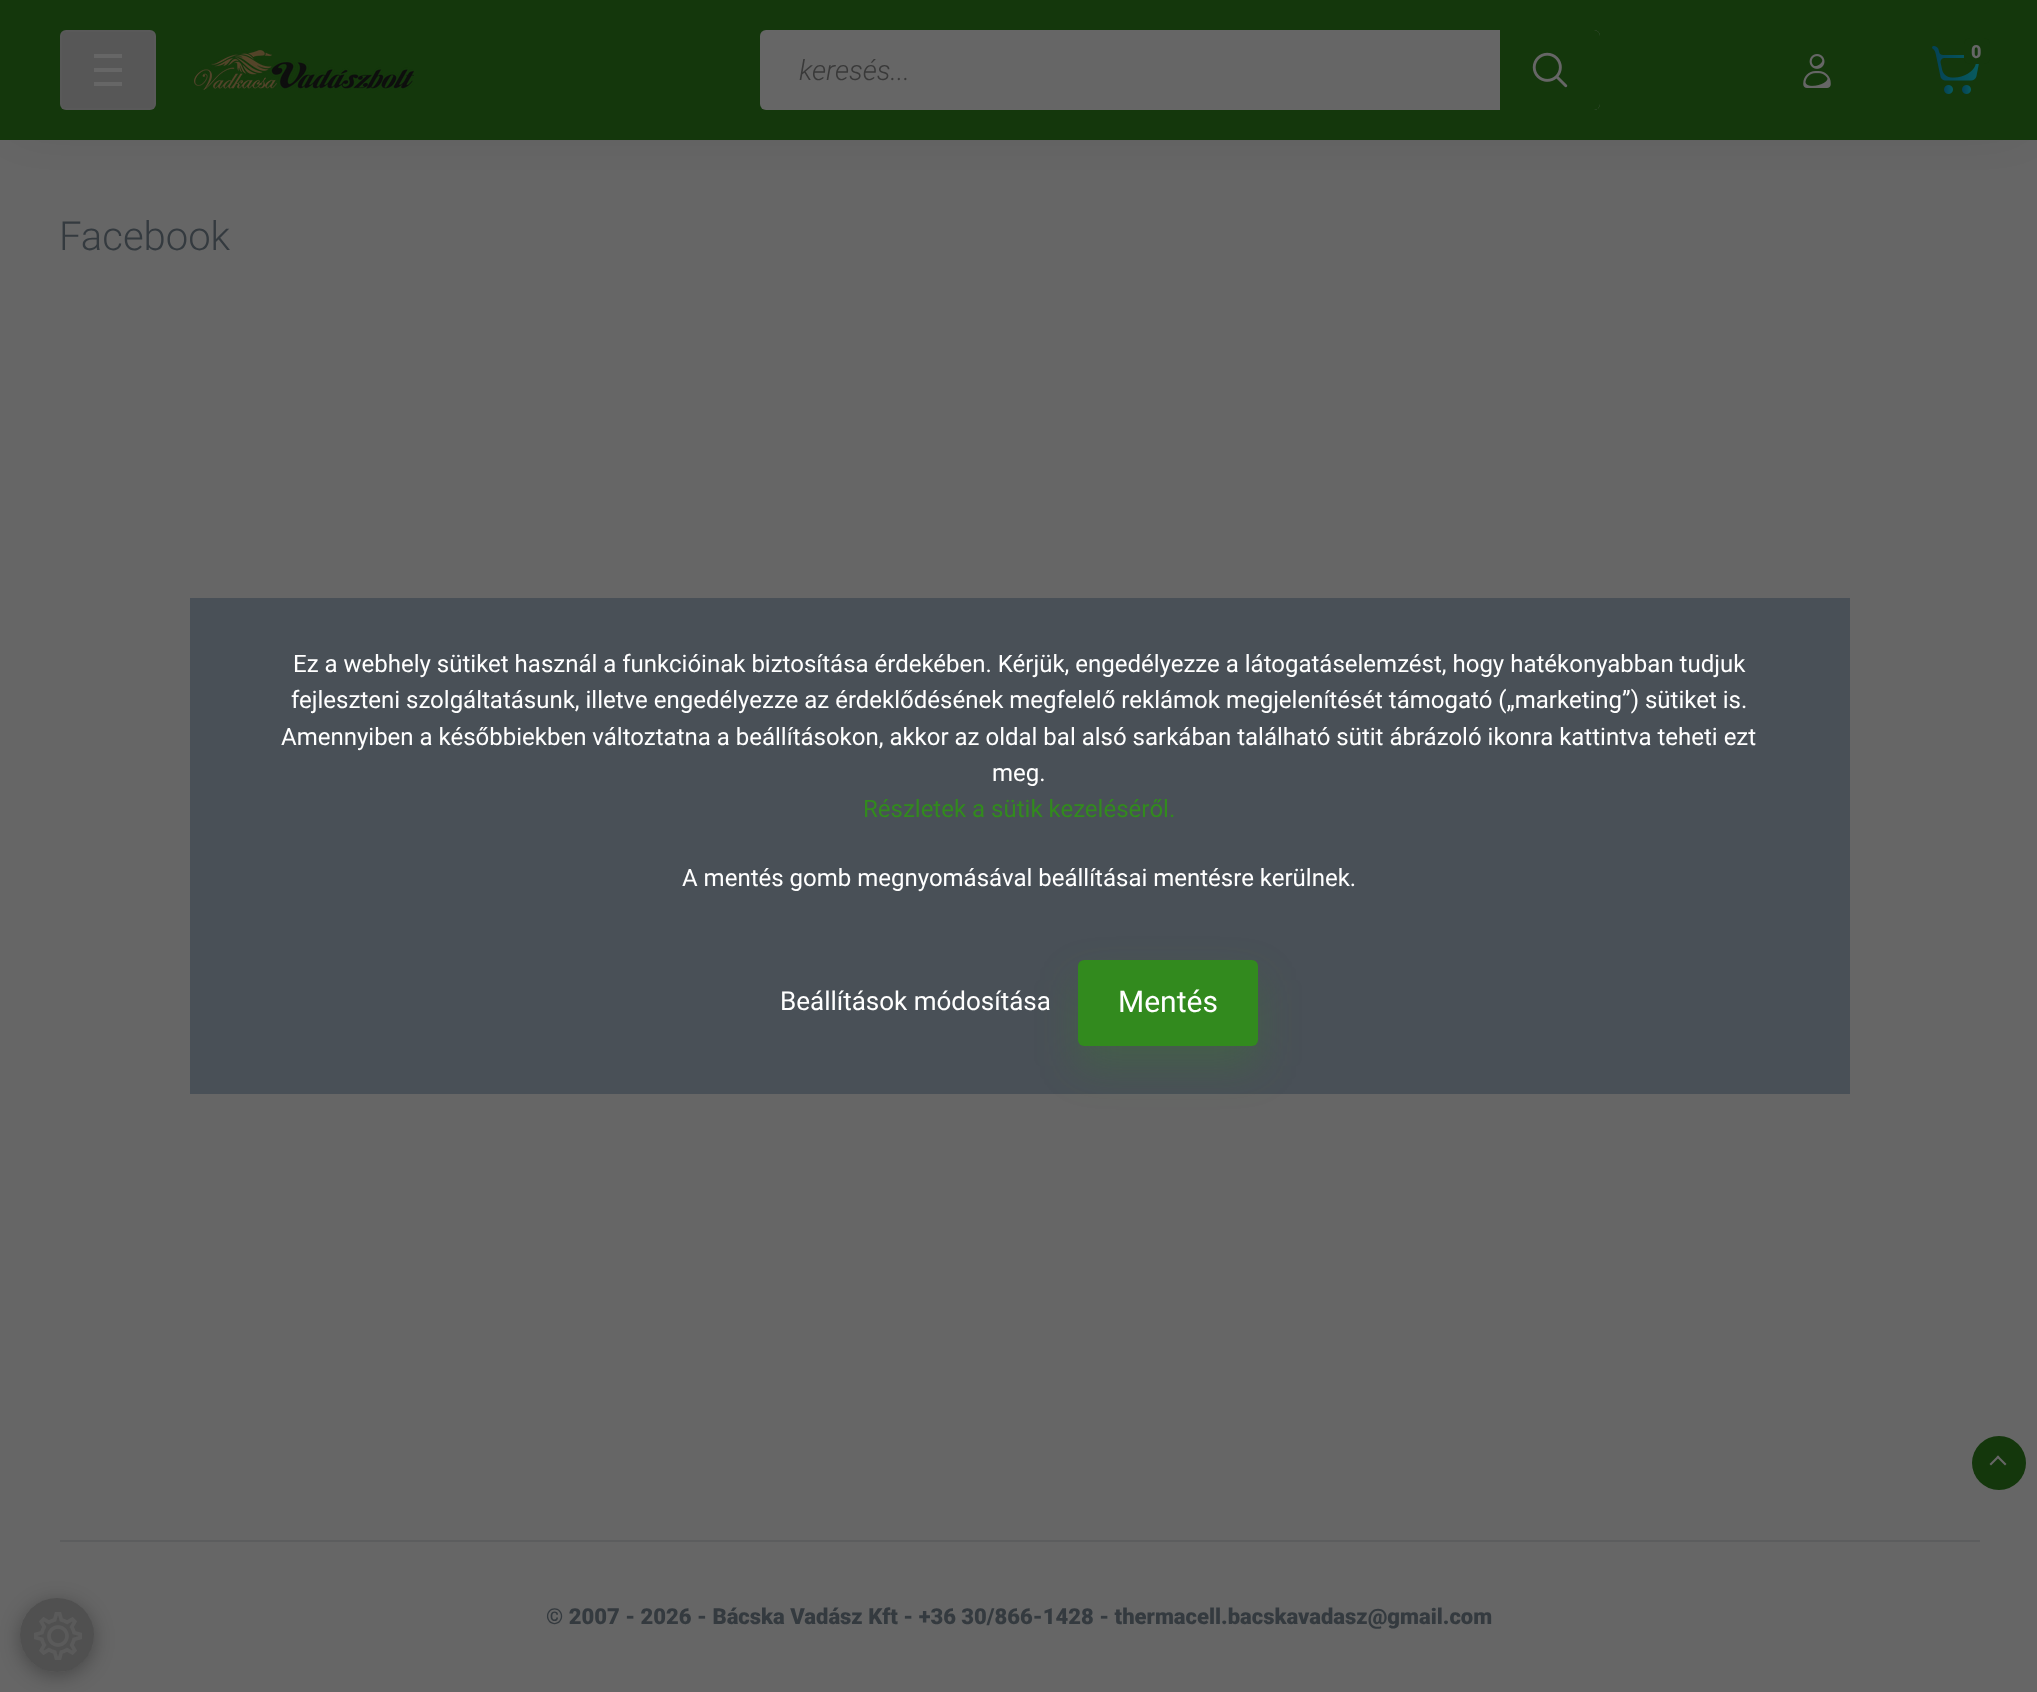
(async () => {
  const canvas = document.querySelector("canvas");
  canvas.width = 2037;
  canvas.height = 1692;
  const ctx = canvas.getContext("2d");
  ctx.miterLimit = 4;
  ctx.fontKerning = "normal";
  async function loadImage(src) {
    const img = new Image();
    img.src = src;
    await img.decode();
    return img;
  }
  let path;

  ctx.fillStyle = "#666666";
  ctx.fillRect(0, 0, 2037, 1692);
  ctx.fillStyle = "rgba(0, 0, 0, 0.15)";
  ctx.filter = "blur(25px)";
  ctx.beginPath();
  ctx.rect(20, 20, 1998, 100);
  ctx.fill();
  ctx.filter = "none";
  ctx.fillStyle = "#14370c";
  ctx.fillRect(0, 0, 2037, 140);
  ctx.fillStyle = "#575757";
  ctx.beginPath();
  ctx.roundRect(60, 30, 96, 80, 6);
  ctx.fill();
  ctx.beginPath();
  ctx.roundRect(61, 31, 94, 78, 5);
  ctx.strokeStyle = "rgba(102, 102, 102, 0.15)";
  ctx.lineWidth = 2;
  ctx.stroke();
  for (const [x, y, w, h, color] of [
    [94, 54, 28, 4, "#666666"],
    [94, 82, 28, 4, "#666666"],
    [94, 68, 28, 4, "#666666"],
  ]) {
    ctx.fillStyle = color;
    ctx.fillRect(x, y, w, h);
  }
  ctx.drawImage(await loadImage("img/1.png"), 194, 50, 220, 40);
  ctx.beginPath();
  ctx.roundRect(760, 30, 840, 80, 6);
  ctx.fill();
  ctx.fillStyle = "#14370c";
  ctx.beginPath();
  ctx.roundRect(1500, 30, 100, 80, [0, 6, 6, 0]);
  ctx.fill();
  ctx.drawImage(await loadImage("img/2.png"), 1532, 52, 36, 36);
  ctx.drawImage(await loadImage("img/3.png"), 1932, 46, 47, 48);
  ctx.beginPath();
  ctx.roundRect(1964, 38, 26, 26, 6);
  ctx.fill();
  ctx.drawImage(await loadImage("img/4.png"), 1803, 54, 28, 34);
  ctx.fillStyle = "#5c5d5e";
  ctx.fillRect(60, 1540, 1920, 2);
  ctx.fillStyle = "#14370c";
  ctx.beginPath();
  ctx.arc(1999, 1463, 27, 0, Math.PI * 2);
  ctx.fill();
  ctx.fillStyle = "#666666";
  path = new Path2D("M1991 1465.5L1989.5 1464L1998 1455.5L1999.5 1457Z");
  ctx.fill(path);
  path = new Path2D("M2005 1465.5L1996.5 1457L1998 1455.5L2006.5 1464Z");
  ctx.fill(path);
  ctx.save();
  path = new Path2D("M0 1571H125V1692H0ZM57 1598C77.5 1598 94 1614.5 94 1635C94 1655.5 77.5 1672 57 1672C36.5 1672 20 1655.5 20 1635C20 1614.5 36.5 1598 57 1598Z");
  ctx.clip(path, "evenodd");
  ctx.fillStyle = "rgba(0, 0, 0, 0.3)";
  ctx.filter = "blur(10px)";
  ctx.beginPath();
  ctx.roundRect(20, 1602, 74, 74, 37);
  ctx.fill();
  ctx.filter = "none";
  ctx.restore();
  ctx.fillStyle = "rgba(31, 31, 31, 0.3)";
  ctx.beginPath();
  ctx.arc(57, 1635, 37, 0, Math.PI * 2);
  ctx.fill();
  ctx.drawImage(await loadImage("img/5.png"), 34, 1612, 48, 48);
  ctx.fillStyle = "#495057";
  ctx.fillRect(190, 598, 1660, 496);
  ctx.fillStyle = "rgba(50, 138, 30, 0.25)";
  ctx.filter = "blur(20px)";
  ctx.beginPath();
  ctx.roundRect(1078, 980, 180, 86, 6);
  ctx.fill();
  ctx.filter = "none";
  ctx.fillStyle = "#328a1e";
  ctx.beginPath();
  ctx.roundRect(1078, 960, 180, 86, 6);
  ctx.fill();
  ctx.font = "italic 300 28px Roboto";
  ctx.fillStyle = "#393939";
  ctx.fillText("keresés...", 799, 80);
  ctx.font = "900 18px Roboto";
  ctx.fillStyle = "#666666";
  ctx.fillText("0", 1971, 58);
  ctx.font = "300 40px Roboto";
  ctx.fillStyle = "#343a3f";
  ctx.fillText("Facebook", 59, 250);
  ctx.font = "900 22px Roboto";
  ctx.fillText("© 2007 - 2026 - Bácska Vadász Kft - +36 30/866-1428 - thermacell.bacskavadasz@gmail.com", 546, 1624);
  ctx.font = "24px Roboto";
  ctx.fillStyle = "#ffffff";
  for (const [text, x, y] of [
    ["Ez a webhely sütiket használ a funkcióinak biztosítása érdekében. Kérjük, engedélyezze a látogatáselemzést, hogy hatékonyabban tudjuk", 293, 672],
    ["fejleszteni szolgáltatásunk, illetve engedélyezze az érdeklődésének megfelelő reklámok megjelenítését támogató („marketing”) sütiket is.", 291, 708],
    ["Amennyiben a későbbiekben változtatna a beállításokon, akkor az oldal bal alsó sarkában található sütit ábrázoló ikonra kattintva teheti ezt", 281, 745],
    ["meg.", 992, 781],
  ]) {
    ctx.fillText(text, x, y);
  }
  ctx.fillStyle = "#328a1e";
  ctx.fillText("Részletek a sütik kezeléséről.", 863, 817);
  ctx.fillStyle = "#ffffff";
  ctx.fillText("A mentés gomb megnyomásával beállításai mentésre kerülnek.", 682, 886);
  ctx.font = "26px Roboto";
  ctx.fillText("Beállítások módosítása", 780, 1010);
  ctx.font = "30px Roboto";
  ctx.fillText("Mentés", 1118, 1012);
})();
